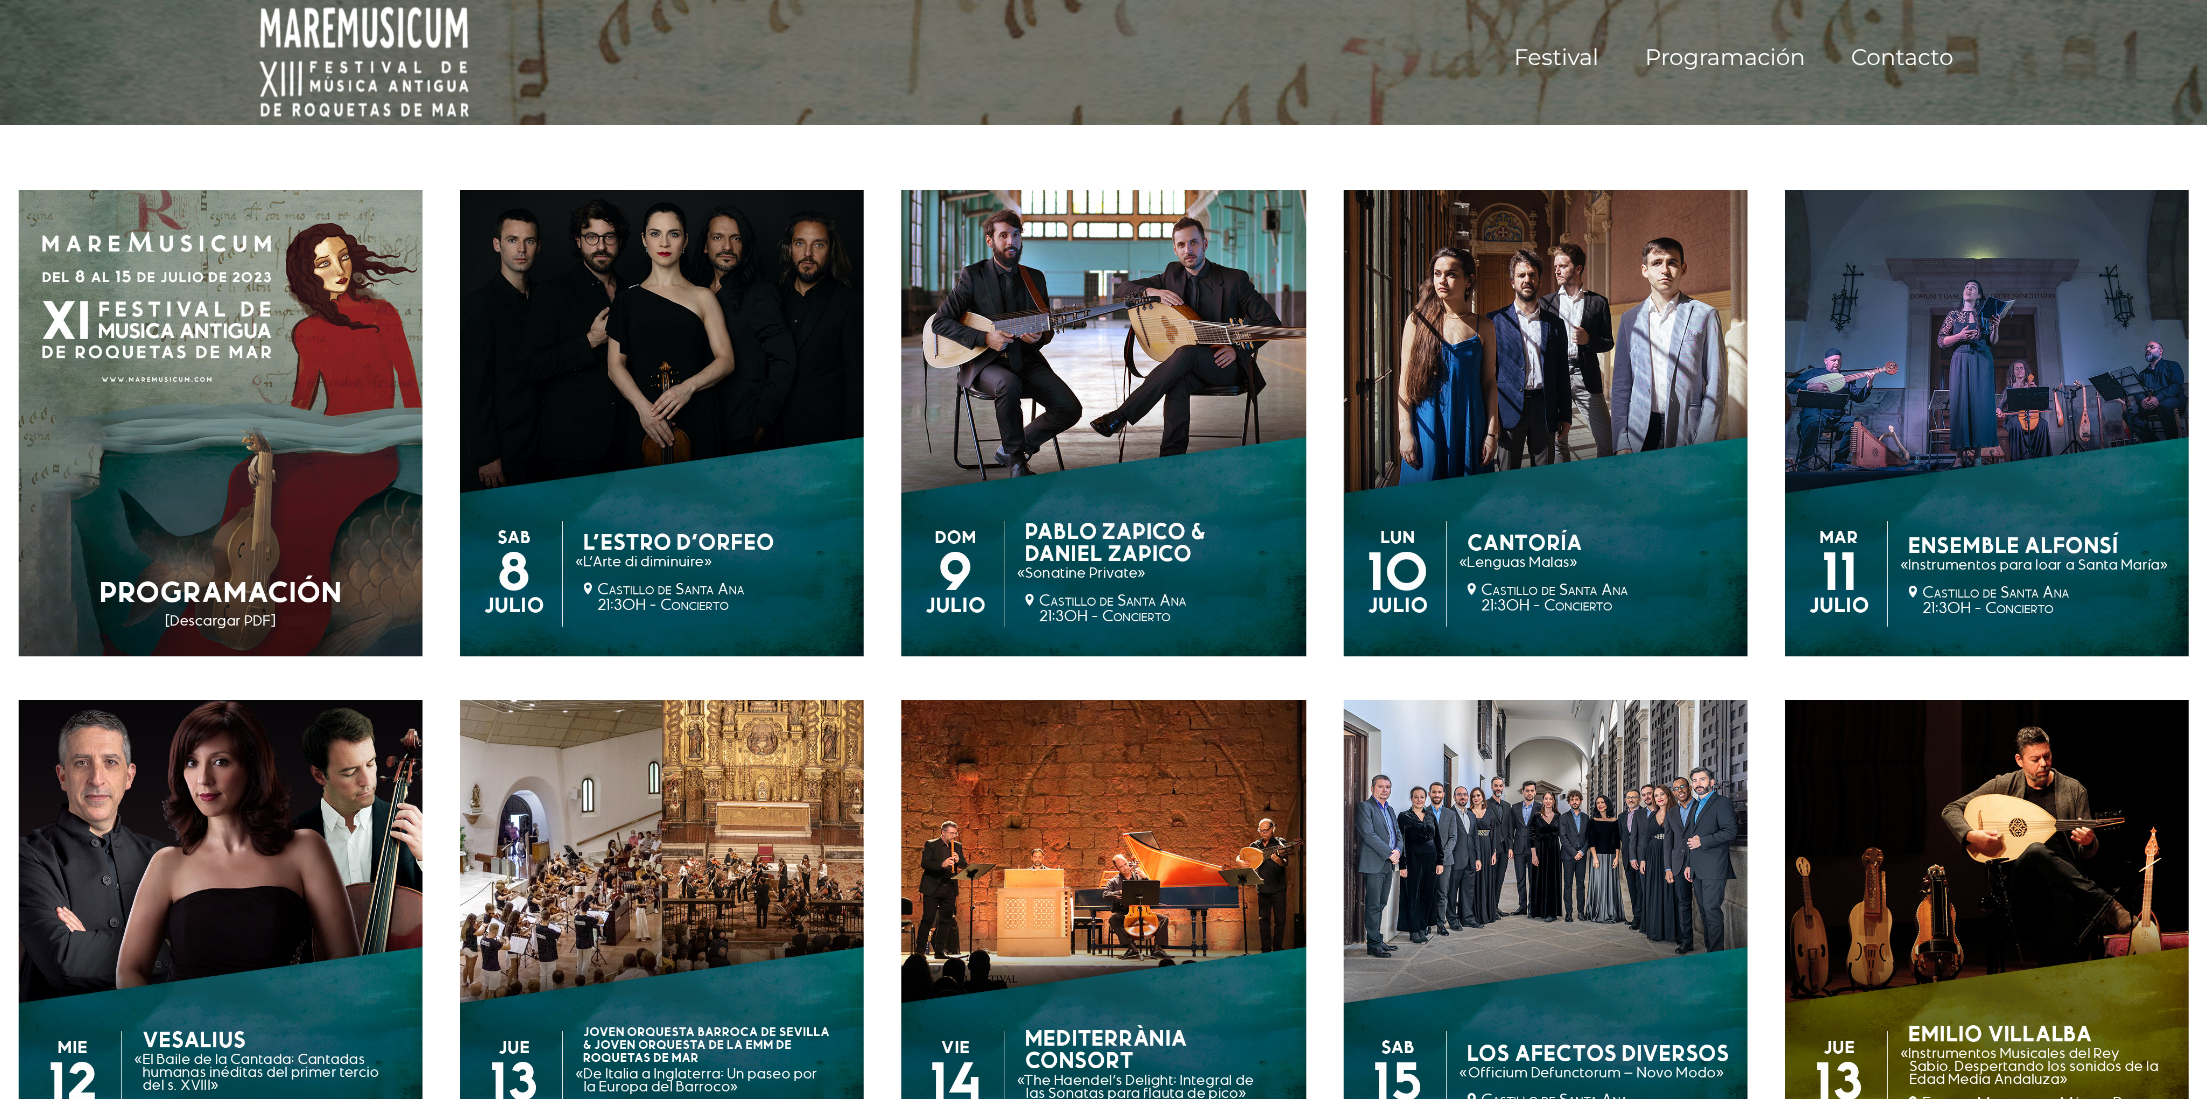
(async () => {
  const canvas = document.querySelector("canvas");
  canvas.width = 2207;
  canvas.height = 1099;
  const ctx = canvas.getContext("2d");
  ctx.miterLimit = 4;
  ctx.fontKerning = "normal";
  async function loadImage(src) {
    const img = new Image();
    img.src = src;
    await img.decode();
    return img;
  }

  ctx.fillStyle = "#ffffff";
  ctx.fillRect(0, 0, 2207, 1099);
  ctx.drawImage(await loadImage("img/1.png"), 0, 0, 2207, 125);
  ctx.drawImage(await loadImage("img/2.png"), 259, 6, 210, 112);
  ctx.drawImage(await loadImage("img/3.png"), 18, 190, 405, 467);
  ctx.drawImage(await loadImage("img/4.png"), 460, 190, 404, 467);
  ctx.drawImage(await loadImage("img/5.png"), 901, 190, 406, 467);
  ctx.drawImage(await loadImage("img/6.png"), 1343, 190, 405, 467);
  ctx.drawImage(await loadImage("img/7.png"), 1785, 190, 404, 467);
  ctx.drawImage(await loadImage("img/8.png"), 18, 700, 405, 399);
  ctx.drawImage(await loadImage("img/9.png"), 460, 700, 404, 399);
  ctx.drawImage(await loadImage("img/10.png"), 901, 700, 406, 399);
  ctx.drawImage(await loadImage("img/11.png"), 1343, 700, 405, 399);
  ctx.drawImage(await loadImage("img/12.png"), 1785, 700, 404, 399);
  ctx.font = "100 22.5px Montserrat";
  for (const [text, x, y] of [
    ["Festival", 1514, 65],
    ["Programación", 1645, 65],
    ["Contacto", 1851, 65],
  ]) {
    ctx.fillText(text, x, y);
  }
})();
